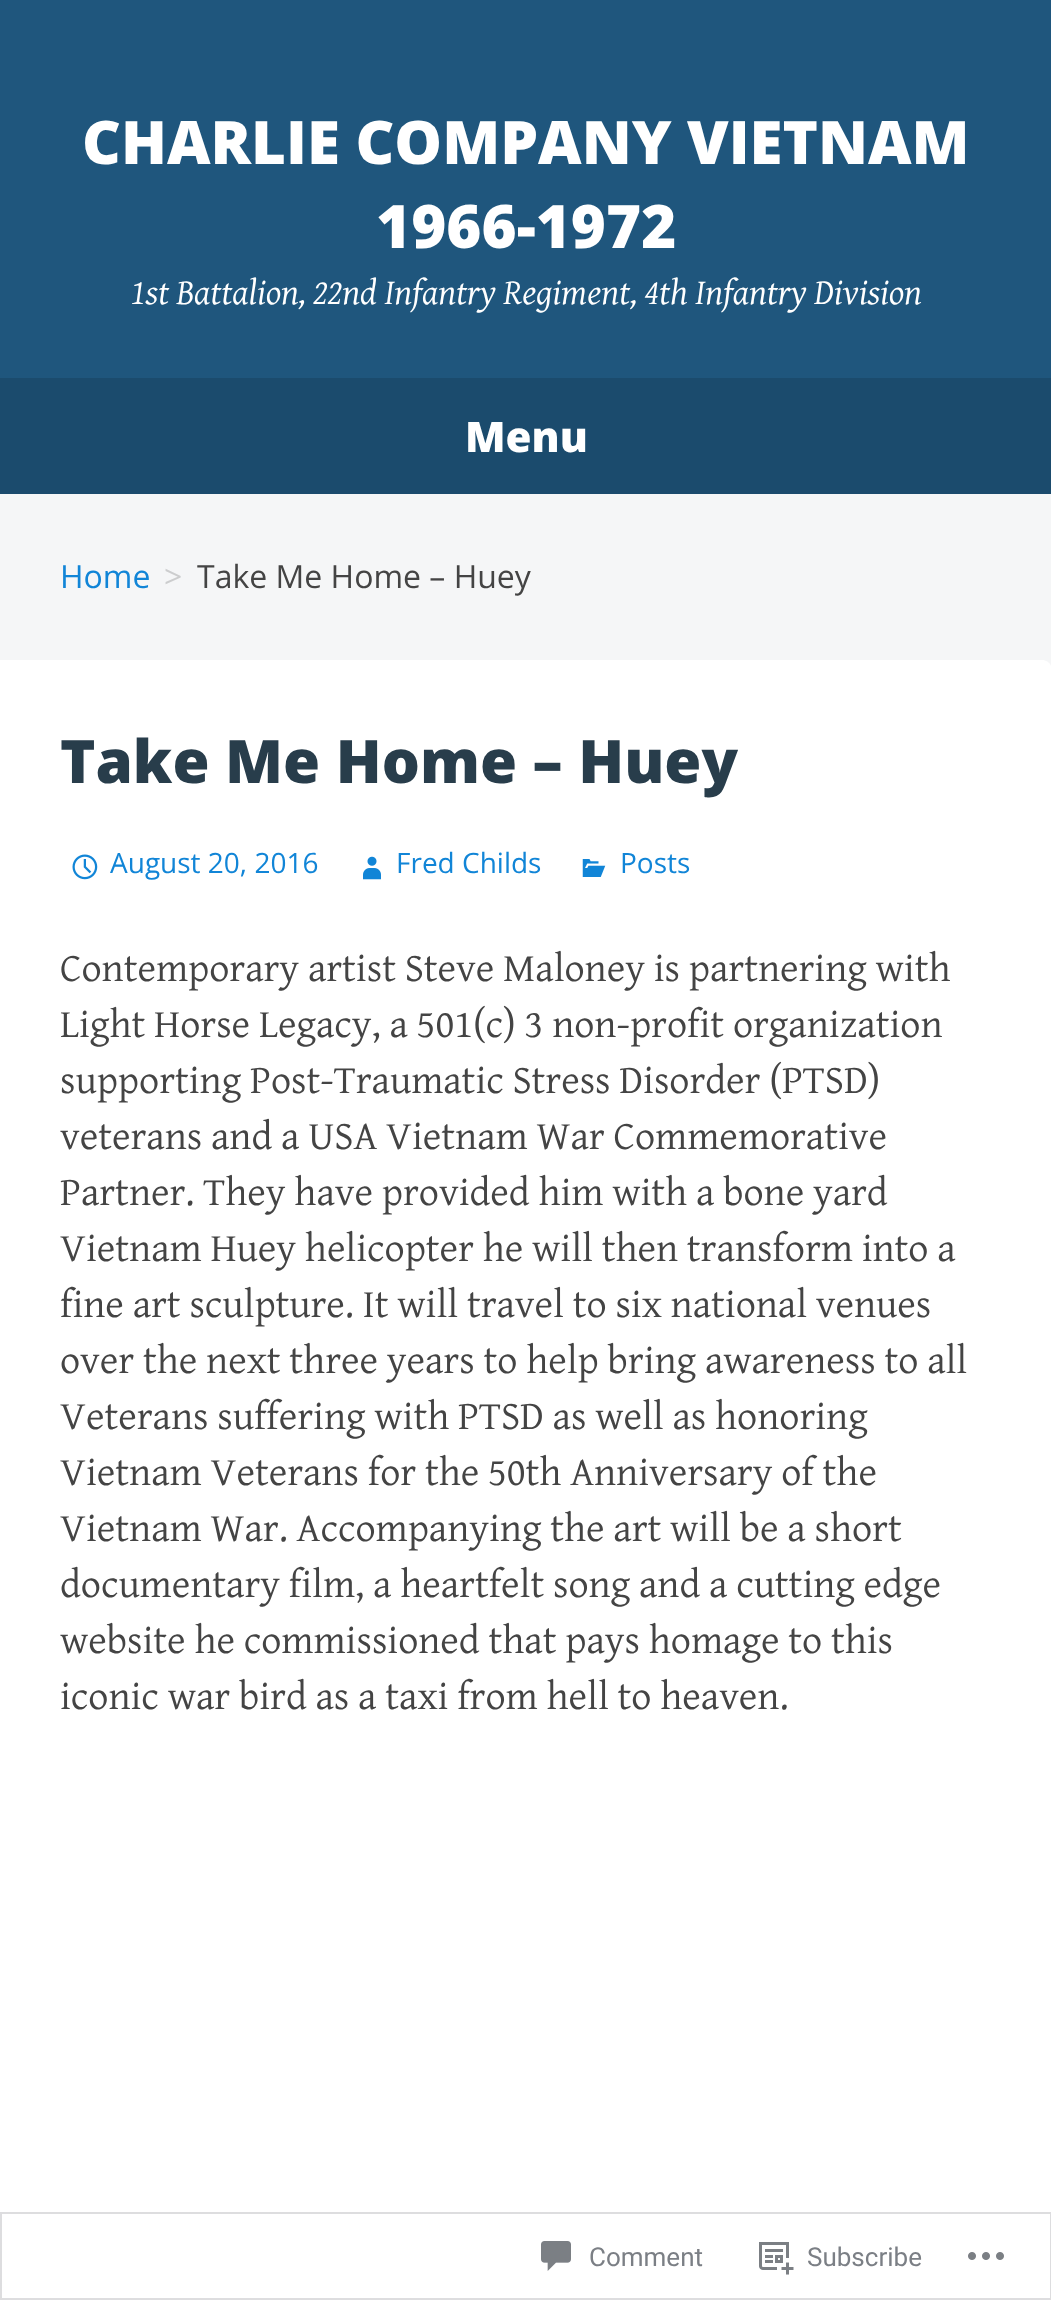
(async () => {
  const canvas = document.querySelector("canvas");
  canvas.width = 1051;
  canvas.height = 2300;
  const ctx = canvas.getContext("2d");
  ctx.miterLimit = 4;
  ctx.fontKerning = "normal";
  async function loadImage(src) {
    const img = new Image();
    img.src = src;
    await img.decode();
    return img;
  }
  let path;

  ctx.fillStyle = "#f5f6f7";
  ctx.fillRect(0, 0, 1051, 2300);
  ctx.fillStyle = "#1f567d";
  ctx.fillRect(0, 0, 1051, 378);
  ctx.fillStyle = "#1b4b6d";
  ctx.fillRect(0, 378, 1051, 116);
  ctx.fillStyle = "#ffffff";
  path = new Path2D("M0 660H1042C1047.5 660 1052 664.5 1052 670V2300C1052 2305.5 1047.5 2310 1042 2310H0Z");
  ctx.fill(path);
  ctx.drawImage(await loadImage("img/1.png"), 72, 854, 26, 26);
  ctx.drawImage(await loadImage("img/2.png"), 363, 856, 18, 24);
  ctx.drawImage(await loadImage("img/3.png"), 582, 859, 24, 18);
  ctx.strokeStyle = "#dddddf";
  ctx.lineWidth = 2;
  ctx.strokeRect(1, 2213, 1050, 86);
  ctx.drawImage(await loadImage("img/4.png"), 541, 2241, 30, 30);
  ctx.drawImage(await loadImage("img/5.png"), 759, 2242, 35, 33);
  ctx.drawImage(await loadImage("img/6.png"), 968, 2252, 36, 8);
  ctx.font = "800 60px Open Sans";
  ctx.fillText("CHARLIE COMPANY VIETNAM", 82, 164);
  ctx.fillText("1966-1972", 376, 248);
  ctx.font = "italic 36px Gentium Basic";
  ctx.fillText("1st Battalion, 22nd Infantry Regiment, 4th Infantry Division", 131, 304);
  ctx.font = "800 42px Open Sans";
  ctx.fillText("Menu", 465, 452);
  ctx.font = "32px Open Sans";
  ctx.fillStyle = "#1185d7";
  ctx.fillText("Home", 60, 588);
  ctx.fillStyle = "#cccdce";
  ctx.fillText(">", 164, 588);
  ctx.fillStyle = "#444444";
  ctx.fillText("Take Me Home – Huey", 197, 588);
  ctx.font = "800 60px Open Sans";
  ctx.fillStyle = "#283d4b";
  ctx.fillText("Take Me Home – Huey", 60, 783);
  ctx.font = "28px Open Sans";
  ctx.fillStyle = "#1185d7";
  for (const [text, x, y] of [
    ["August 20, 2016", 110, 873],
    ["Fred Childs", 396, 873],
    ["Posts", 620, 873],
  ]) {
    ctx.fillText(text, x, y);
  }
  ctx.font = "40px Gentium Basic";
  ctx.fillStyle = "#444444";
  for (const [text, x, y] of [
    ["Contemporary artist Steve Maloney is partnering with", 60, 981],
    ["Light Horse Legacy, a 501(c) 3 non-profit organization", 60, 1037],
    ["supporting Post-Traumatic Stress Disorder (PTSD)", 60, 1093],
    ["veterans and a USA Vietnam War Commemorative", 60, 1149],
    ["Partner. They have provided him with a bone yard", 60, 1205],
    ["Vietnam Huey helicopter he will then transform into a", 60, 1261],
    ["fine art sculpture. It will travel to six national venues", 60, 1317],
    ["over the next three years to help bring awareness to all", 60, 1373],
    ["Veterans suffering with PTSD as well as honoring", 60, 1429],
    ["Vietnam Veterans for the 50th Anniversary of the", 60, 1485],
    ["Vietnam War. Accompanying the art will be a short", 60, 1541],
    ["documentary film, a heartfelt song and a cutting edge", 60, 1597],
    ["website he commissioned that pays homage to this", 60, 1653],
    ["iconic war bird as a taxi from hell to heaven.", 60, 1709],
  ]) {
    ctx.fillText(text, x, y);
  }
  ctx.font = "26px Roboto";
  ctx.fillStyle = "#7b7f85";
  ctx.fillText("Comment", 589, 2266);
  ctx.fillText("Subscribe", 807, 2266);
})();
